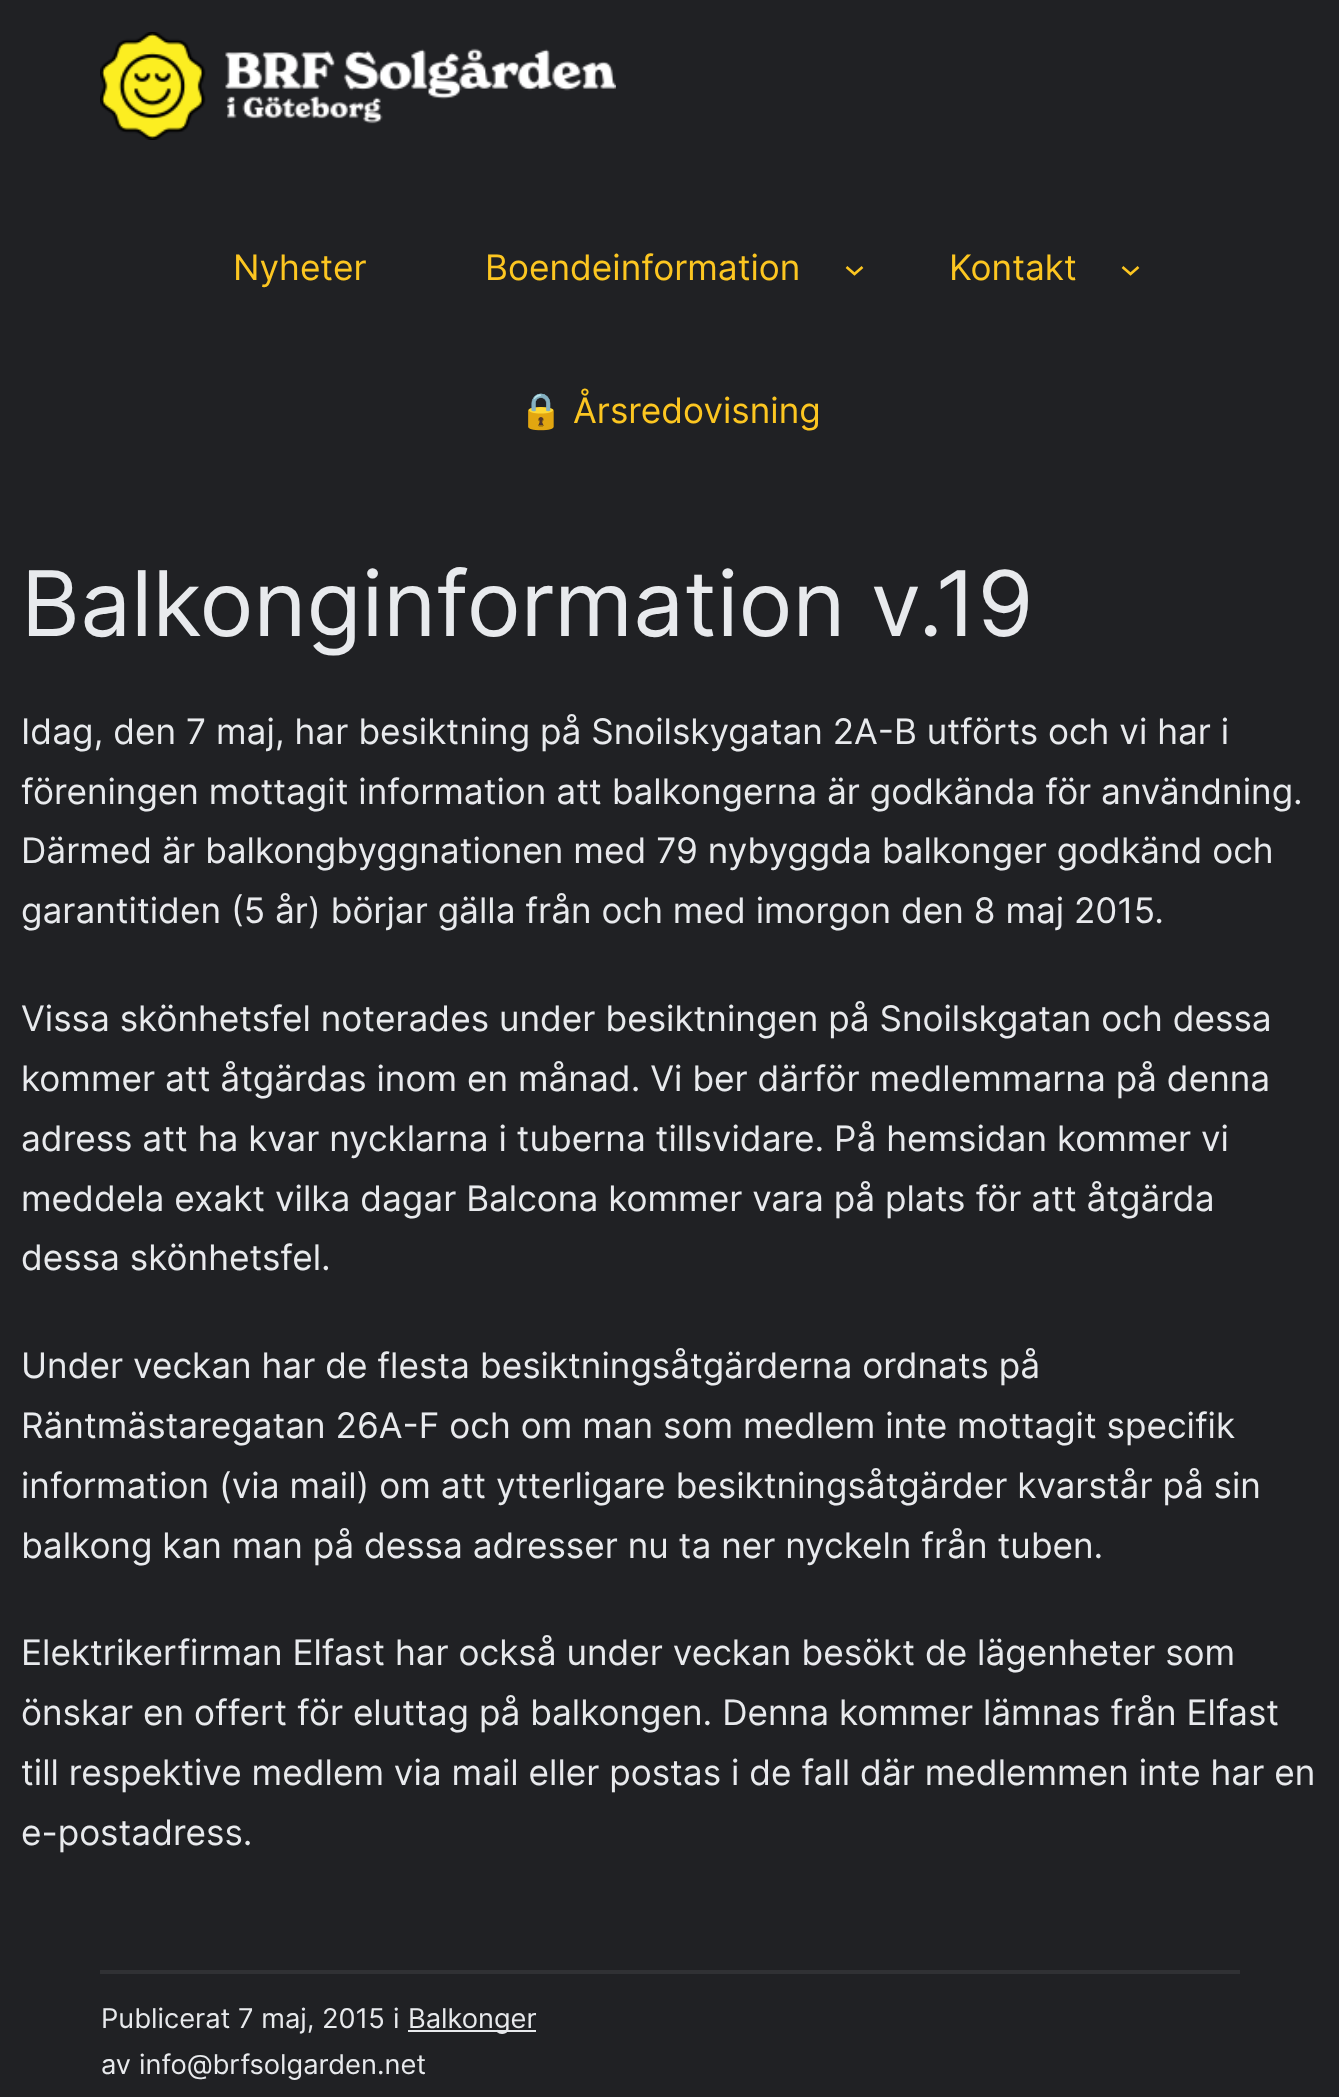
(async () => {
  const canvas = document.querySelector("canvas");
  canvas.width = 1339;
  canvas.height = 2097;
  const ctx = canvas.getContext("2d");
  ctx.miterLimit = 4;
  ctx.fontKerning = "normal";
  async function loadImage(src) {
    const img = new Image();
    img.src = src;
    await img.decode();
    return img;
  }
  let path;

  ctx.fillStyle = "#202124";
  ctx.fillRect(0, 0, 1339, 2097);
  ctx.drawImage(await loadImage("img/1.png"), 100, 32, 516, 108);
  path = new Path2D("M846.5 267L854.5 274L862.5 267");
  ctx.strokeStyle = "#fcc621";
  ctx.lineWidth = 2.6;
  ctx.stroke(path);
  path = new Path2D("M1122.5 267L1130.5 274L1138.5 267");
  ctx.stroke(path);
  ctx.fillStyle = "#303134";
  ctx.fillRect(100, 1970, 1140, 4);
  ctx.fillStyle = "#e8eaed";
  ctx.fillRect(408, 2030, 128, 2);
  ctx.font = "35.2px Inter";
  ctx.fillStyle = "#fcc621";
  for (const [text, x, y] of [
    ["Nyheter", 233, 280],
    ["Boendeinformation", 485, 280],
    ["Kontakt", 949, 280],
  ]) {
    ctx.fillText(text, x, y);
  }
  ctx.font = "35.2px Noto Color Emoji";
  ctx.fillText("🔒", 519, 423);
  ctx.font = "35.2px Inter";
  ctx.fillText("Årsredovisning", 573, 423);
  ctx.font = "90.5px Inter";
  ctx.fillStyle = "#e8eaed";
  ctx.fillText("Balkonginformation v.19", 21, 636);
  ctx.font = "35.2px Inter";
  for (const [text, x, y] of [
    ["Idag, den 7 maj, har besiktning på Snoilskygatan 2A-B utförts och vi har i", 21, 744],
    ["föreningen mottagit information att balkongerna är godkända för användning.", 21, 804],
    ["Därmed är balkongbyggnationen med 79 nybyggda balkonger godkänd och", 21, 863],
    ["garantitiden (5 år) börjar gälla från och med imorgon den 8 maj 2015.", 21, 923],
    ["Vissa skönhetsfel noterades under besiktningen på Snoilskgatan och dessa", 21, 1031],
    ["kommer att åtgärdas inom en månad. Vi ber därför medlemmarna på denna", 21, 1091],
    ["adress att ha kvar nycklarna i tuberna tillsvidare. På hemsidan kommer vi", 21, 1151],
    ["meddela exakt vilka dagar Balcona kommer vara på plats för att åtgärda", 21, 1211],
    ["dessa skönhetsfel.", 21, 1270],
    ["Under veckan har de flesta besiktningsåtgärderna ordnats på", 21, 1378],
    ["Räntmästaregatan 26A-F och om man som medlem inte mottagit specifik", 21, 1438],
    ["information (via mail) om att ytterligare besiktningsåtgärder kvarstår på sin", 21, 1498],
    ["balkong kan man på dessa adresser nu ta ner nyckeln från tuben.", 21, 1558],
    ["Elektrikerfirman Elfast har också under veckan besökt de lägenheter som", 21, 1665],
    ["önskar en offert för eluttag på balkongen. Denna kommer lämnas från Elfast", 21, 1725],
    ["till respektive medlem via mail eller postas i de fall där medlemmen inte har en", 21, 1785],
    ["e-postadress.", 21, 1845],
  ]) {
    ctx.fillText(text, x, y);
  }
  ctx.font = "27.25px Inter";
  for (const [text, x, y] of [
    ["Publicerat", 101, 2028],
    ["7 maj, 2015", 238, 2028],
    ["i", 393, 2028],
    ["Balkonger", 408, 2028],
    ["av", 101, 2074],
    ["info@brfsolgarden.net", 139, 2074],
  ]) {
    ctx.fillText(text, x, y);
  }
})();
